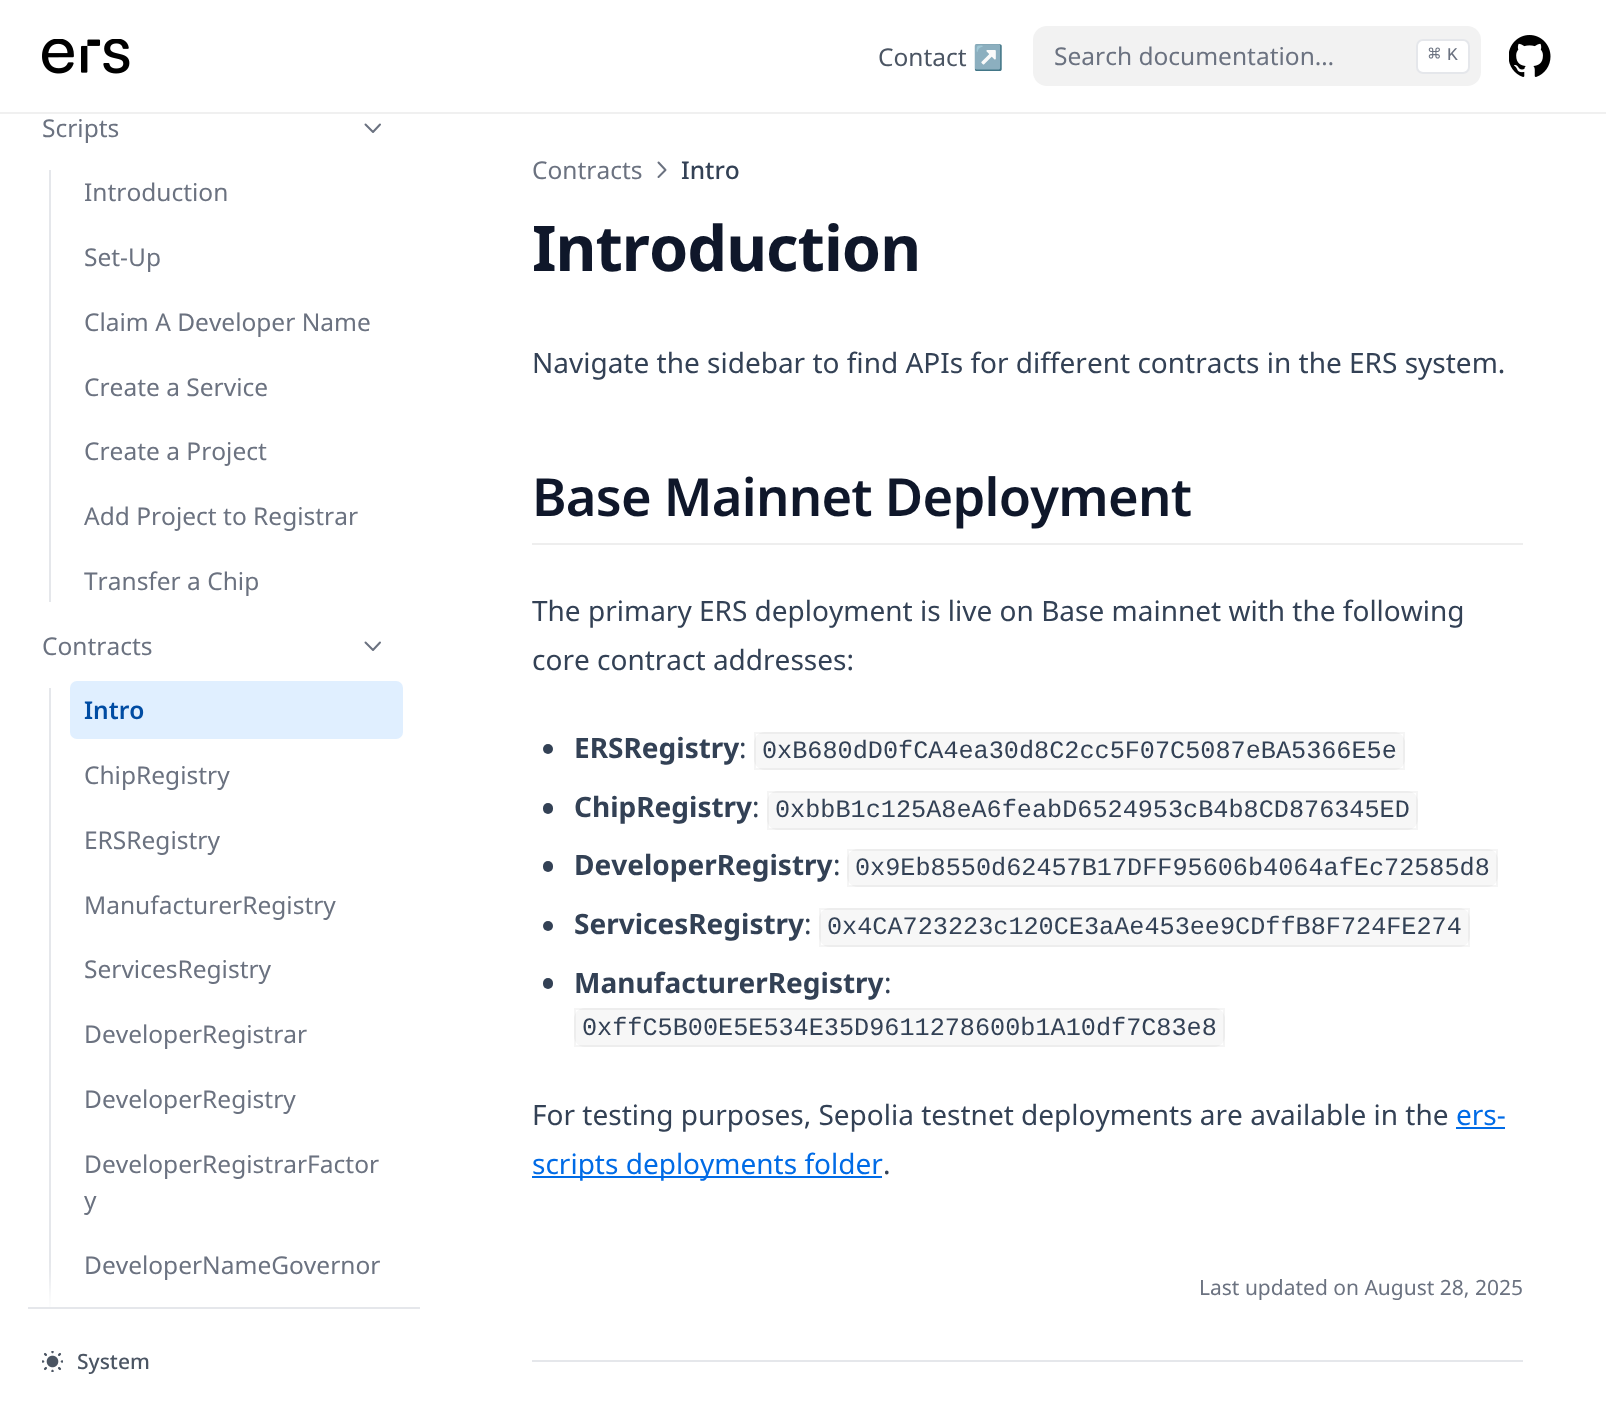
(async () => {
  const canvas = document.querySelector("canvas");
  canvas.width = 1606;
  canvas.height = 1413;
  const ctx = canvas.getContext("2d");
  ctx.miterLimit = 4;
  ctx.fontKerning = "none";
  async function loadImage(src) {
    const img = new Image();
    img.src = src;
    await img.decode();
    return img;
  }
  let path;

  ctx.fillStyle = "#ffffff";
  ctx.fillRect(0, 0, 1606, 1413);
  ctx.drawImage(await loadImage("img/1.png"), 42, 39, 88, 35);
  ctx.fillStyle = "#f2f2f2";
  ctx.beginPath();
  ctx.roundRect(1033, 26, 448, 60, 14);
  ctx.fill();
  ctx.fillStyle = "#ffffff";
  ctx.beginPath();
  ctx.roundRect(1417, 40, 52, 33, 6);
  ctx.fill();
  ctx.strokeStyle = "#e5e7eb";
  ctx.lineWidth = 2;
  ctx.stroke();
  ctx.drawImage(await loadImage("img/2.png"), 1509, 35, 42, 42);
  ctx.fillStyle = "#f0f0f0";
  path = new Path2D("M0 112V114H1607V2H1606V112Z");
  ctx.fill(path);
  path = new Path2D("M380 124.5L373 132L365.5 124.5");
  ctx.strokeStyle = "#6b7280";
  ctx.lineCap = "round";
  ctx.lineJoin = "round";
  ctx.stroke(path);
  ctx.fillStyle = "#e5e7eb";
  ctx.fillRect(49, 170, 2, 432);
  path = new Path2D("M380 642.5L373 650L365.5 642.5");
  ctx.stroke(path);
  ctx.fillRect(49, 688, 2, 621);
  ctx.fillStyle = "#e0efff";
  ctx.beginPath();
  ctx.roundRect(70, 681, 333, 58, 7);
  ctx.fill();
  ctx.save();
  path = new Path2D("M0 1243H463V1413H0ZM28 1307H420V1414H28Z");
  ctx.clip(path, "evenodd");
  ctx.fillStyle = "#ffffff";
  ctx.filter = "blur(14px)";
  ctx.beginPath();
  ctx.rect(28, 1286, 392, 107);
  ctx.fill();
  ctx.filter = "none";
  ctx.restore();
  ctx.fillStyle = "#e5e7eb";
  ctx.fillRect(28, 1307, 392, 2);
  ctx.drawImage(await loadImage("img/3.png"), 42, 1351, 21, 21);
  path = new Path2D("M658.5 162.5L665.5 170L658.5 177");
  ctx.stroke(path);
  ctx.fillStyle = "#eeeeee";
  ctx.fillRect(532, 543, 991, 2);
  ctx.fillStyle = "#334155";
  ctx.beginPath();
  ctx.arc(548, 749, 5, 0, Math.PI * 2);
  ctx.fill();
  ctx.fillStyle = "#f7f7f7";
  ctx.beginPath();
  ctx.roundRect(754, 732, 651, 38, 11);
  ctx.fill();
  ctx.strokeStyle = "rgba(0, 0, 0, 0.04)";
  ctx.lineJoin = "miter";
  ctx.strokeRect(755, 733, 649, 36);
  ctx.fillStyle = "#334155";
  ctx.beginPath();
  ctx.roundRect(543, 803, 10, 11, 5);
  ctx.fill();
  ctx.fillStyle = "#f7f7f7";
  ctx.beginPath();
  ctx.roundRect(767, 791, 651, 39, 11);
  ctx.fill();
  ctx.strokeRect(768, 792, 649, 37);
  ctx.fillStyle = "#334155";
  ctx.beginPath();
  ctx.roundRect(543, 861, 10, 11, 5);
  ctx.fill();
  ctx.fillStyle = "#f7f7f7";
  ctx.beginPath();
  ctx.roundRect(847, 849, 651, 38, 11);
  ctx.fill();
  ctx.strokeRect(848, 850, 649, 36);
  ctx.fillStyle = "#334155";
  ctx.beginPath();
  ctx.arc(548, 926, 5, 0, Math.PI * 2);
  ctx.fill();
  ctx.fillStyle = "#f7f7f7";
  ctx.beginPath();
  ctx.roundRect(819, 908, 651, 39, 11);
  ctx.fill();
  ctx.strokeRect(820, 909, 649, 37);
  ctx.fillStyle = "#334155";
  ctx.beginPath();
  ctx.roundRect(543, 978, 10, 11, 5);
  ctx.fill();
  ctx.fillStyle = "#f7f7f7";
  ctx.beginPath();
  ctx.roundRect(574, 1008, 651, 39, 11);
  ctx.fill();
  ctx.strokeRect(575, 1009, 649, 37);
  for (const [x, y, w, h, color] of [
    [1456, 1127, 49, 2, "#006be6"],
    [532, 1176, 350, 2, "#006be6"],
    [532, 1360, 991, 2, "#e5e7eb"],
  ]) {
    ctx.fillStyle = color;
    ctx.fillRect(x, y, w, h);
  }
  ctx.font = "24.5px Noto Sans";
  ctx.fillStyle = "#4b5563";
  ctx.fillText("Contact", 878, 66);
  ctx.font = "24.5px Noto Color Emoji";
  ctx.fillText("↗", 973, 66);
  ctx.font = "24.5px Noto Sans";
  ctx.fillStyle = "#6b7280";
  ctx.fillText("Search documentation…", 1054, 65);
  ctx.font = "21px DejaVu Sans Mono";
  ctx.fillText("⌘", 1428, 61);
  ctx.font = "18px Liberation Mono";
  ctx.fillText("K", 1447, 60);
  ctx.font = "24.5px Noto Sans";
  for (const [text, x, y] of [
    ["Scripts", 42, 137],
    ["Introduction", 84, 201],
    ["Set-Up", 84, 266],
    ["Claim A Developer Name", 84, 331],
    ["Create a Service", 84, 396],
    ["Create a Project", 84, 460],
    ["Add Project to Registrar", 84, 525],
    ["Transfer a Chip", 84, 590],
    ["Contracts", 42, 655],
  ]) {
    ctx.fillText(text, x, y);
  }
  ctx.font = "600 24.5px Noto Sans";
  ctx.fillStyle = "#004ca3";
  ctx.fillText("Intro", 84, 719);
  ctx.font = "24.5px Noto Sans";
  ctx.fillStyle = "#6b7280";
  for (const [text, x, y] of [
    ["ChipRegistry", 84, 784],
    ["ERSRegistry", 84, 849],
    ["ManufacturerRegistry", 84, 914],
    ["ServicesRegistry", 84, 978],
    ["DeveloperRegistrar", 84, 1043],
    ["DeveloperRegistry", 84, 1108],
    ["DeveloperRegistrarFactor", 84, 1173],
    ["y", 84, 1209],
    ["DeveloperNameGovernor", 84, 1274],
  ]) {
    ctx.fillText(text, x, y);
  }
  ctx.font = "500 21px Noto Sans";
  ctx.fillStyle = "#4b5563";
  ctx.fillText("System", 77, 1369);
  ctx.font = "24.5px Noto Sans";
  ctx.fillStyle = "#6b7280";
  ctx.fillText("Contracts", 532, 179);
  ctx.font = "500 24.5px Noto Sans";
  ctx.fillStyle = "#334155";
  ctx.fillText("Intro", 681, 179);
  ctx.letterSpacing = "-1px";
  ctx.font = "bold 63px Noto Sans";
  ctx.fillStyle = "#0f172a";
  ctx.fillText("Introduction", 532, 271);
  ctx.letterSpacing = "0px";
  ctx.font = "28px Noto Sans";
  ctx.fillStyle = "#334155";
  ctx.fillText("Navigate the sidebar to find APIs for different contracts in the ERS system.", 532, 373);
  ctx.letterSpacing = "-0.75px";
  ctx.font = "600 52.5px Noto Sans";
  ctx.fillStyle = "#0f172a";
  ctx.fillText("Base Mainnet Deployment", 532, 516);
  ctx.letterSpacing = "0px";
  ctx.font = "28px Noto Sans";
  ctx.fillStyle = "#334155";
  ctx.fillText("The primary ERS deployment is live on Base mainnet with the following", 532, 621);
  ctx.fillText("core contract addresses:", 532, 670);
  ctx.font = "bold 28px Noto Sans";
  ctx.fillText("ERSRegistry", 574, 758);
  ctx.font = "28px Noto Sans";
  ctx.fillText(":", 739, 758);
  ctx.font = "25.2px Liberation Mono";
  ctx.fillText("0xB680dD0fCA4ea30d8C2cc5F07C5087eBA5366E5e", 762, 758);
  ctx.font = "bold 28px Noto Sans";
  ctx.fillText("ChipRegistry", 574, 817);
  ctx.font = "28px Noto Sans";
  ctx.fillText(":", 752, 817);
  ctx.font = "25.2px Liberation Mono";
  ctx.fillText("0xbbB1c125A8eA6feabD6524953cB4b8CD876345ED", 775, 817);
  ctx.font = "bold 28px Noto Sans";
  ctx.fillText("DeveloperRegistry", 574, 875);
  ctx.font = "28px Noto Sans";
  ctx.fillText(":", 833, 875);
  ctx.font = "25.2px Liberation Mono";
  ctx.fillText("0x9Eb8550d62457B17DFF95606b4064afEc72585d8", 855, 875);
  ctx.font = "bold 28px Noto Sans";
  ctx.fillText("ServicesRegistry", 574, 934);
  ctx.font = "28px Noto Sans";
  ctx.fillText(":", 804, 934);
  ctx.font = "25.2px Liberation Mono";
  ctx.fillText("0x4CA723223c120CE3aAe453ee9CDffB8F724FE274", 827, 934);
  ctx.font = "bold 28px Noto Sans";
  ctx.fillText("ManufacturerRegistry", 574, 993);
  ctx.font = "28px Noto Sans";
  ctx.fillText(":", 884, 993);
  ctx.font = "25.2px Liberation Mono";
  ctx.fillText("0xffC5B00E5E534E35D9611278600b1A10df7C83e8", 582, 1035);
  ctx.font = "28px Noto Sans";
  ctx.fillText("For testing purposes, Sepolia testnet deployments are available in the", 532, 1125);
  ctx.fillStyle = "#006be6";
  ctx.fillText("ers-", 1456, 1125);
  ctx.fillText("scripts deployments folder", 532, 1174);
  ctx.fillStyle = "#334155";
  ctx.fillText(".", 883, 1174);
  ctx.font = "21px Noto Sans";
  ctx.fillStyle = "#6b7280";
  ctx.fillText("Last updated on August 28, 2025", 1199, 1295);
})();
